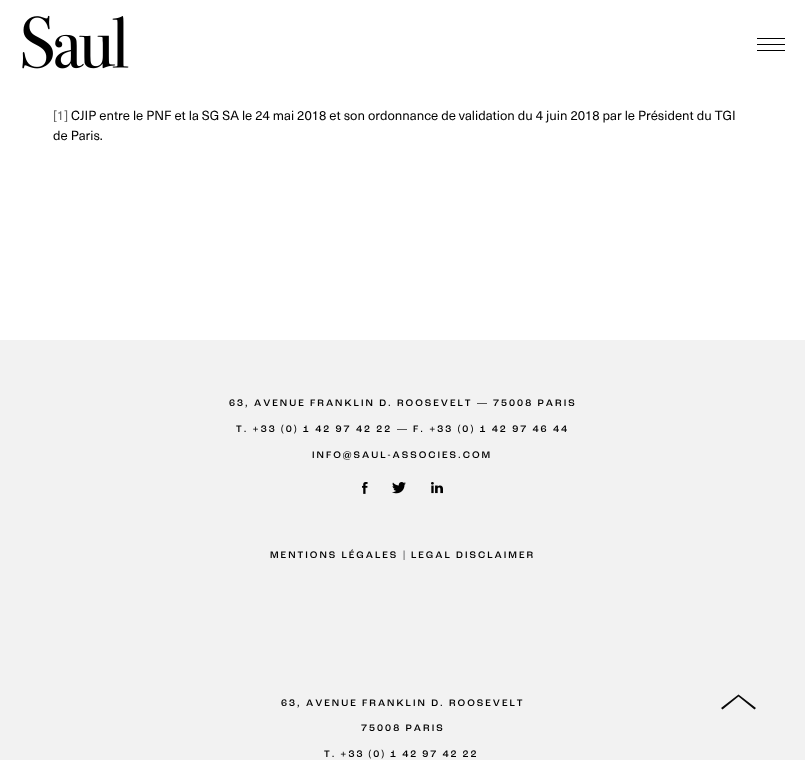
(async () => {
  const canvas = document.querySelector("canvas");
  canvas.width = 805;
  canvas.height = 760;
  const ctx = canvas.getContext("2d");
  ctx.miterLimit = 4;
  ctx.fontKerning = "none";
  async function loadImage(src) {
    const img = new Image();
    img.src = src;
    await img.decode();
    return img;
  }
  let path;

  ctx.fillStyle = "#ffffff";
  ctx.fillRect(0, 0, 805, 760);
  ctx.drawImage(await loadImage("img/1.png"), 22, 15, 107, 54);
  for (const [x, y, w, h, color] of [
    [757, 44, 28, 1, "#000000"],
    [757, 38, 28, 1, "#000000"],
    [757, 50, 28, 1, "#000000"],
    [0, 340, 805, 420, "#f2f2f2"],
  ]) {
    ctx.fillStyle = color;
    ctx.fillRect(x, y, w, h);
  }
  ctx.drawImage(await loadImage("img/2.png"), 362, 482, 6, 12);
  ctx.drawImage(await loadImage("img/3.png"), 392, 482, 14, 12);
  ctx.drawImage(await loadImage("img/4.png"), 431, 482, 12, 12);
  ctx.fillStyle = "#090909";
  path = new Path2D("M756 708L754.5 709.5L738.5 696.5L722.5 709.5L721 708L738.5 694.5Z");
  ctx.fill(path);
  ctx.font = "13px 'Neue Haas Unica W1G'";
  ctx.fillStyle = "#686868";
  ctx.fillText("[1]", 53, 120);
  ctx.fillStyle = "#000000";
  ctx.fillText("CJIP entre le PNF et la SG SA le 24 mai 2018 et son ordonnance de validation du 4 juin 2018 par le Président du TGI", 71, 120);
  ctx.fillText("de Paris.", 53, 140);
  ctx.letterSpacing = "2px";
  ctx.font = "500 10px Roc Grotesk";
  ctx.fillText("63, AVENUE FRANKLIN D. ROOSEVELT", 229, 406);
  ctx.font = "10px Liberation Sans";
  ctx.fillText("―", 477, 406);
  ctx.font = "500 10px Roc Grotesk";
  ctx.fillText("75008 PARIS", 493, 406);
  ctx.fillText("T. +33 (0) 1 42 97 42 22", 236, 432);
  ctx.font = "10px Liberation Sans";
  ctx.fillText("―", 397, 432);
  ctx.font = "500 10px Roc Grotesk";
  for (const [text, x, y] of [
    ["F. +33 (0) 1 42 97 46 44", 413, 432],
    ["INFO@SAUL-ASSOCIES.COM", 312, 458],
    ["MENTIONS LÉGALES", 270, 558],
  ]) {
    ctx.fillText(text, x, y);
  }
  ctx.fillStyle = "#292a2c";
  ctx.fillText("|", 403, 558);
  ctx.fillStyle = "#000000";
  for (const [text, x, y] of [
    ["LEGAL DISCLAIMER", 411, 558],
    ["63, AVENUE FRANKLIN D. ROOSEVELT", 281, 706],
    ["75008 PARIS", 361, 731],
  ]) {
    ctx.fillText(text, x, y);
  }
  ctx.wordSpacing = "-0.25px";
  ctx.fillText("T. +33 (0) 1 42 97 42 22", 324, 757);
})();
